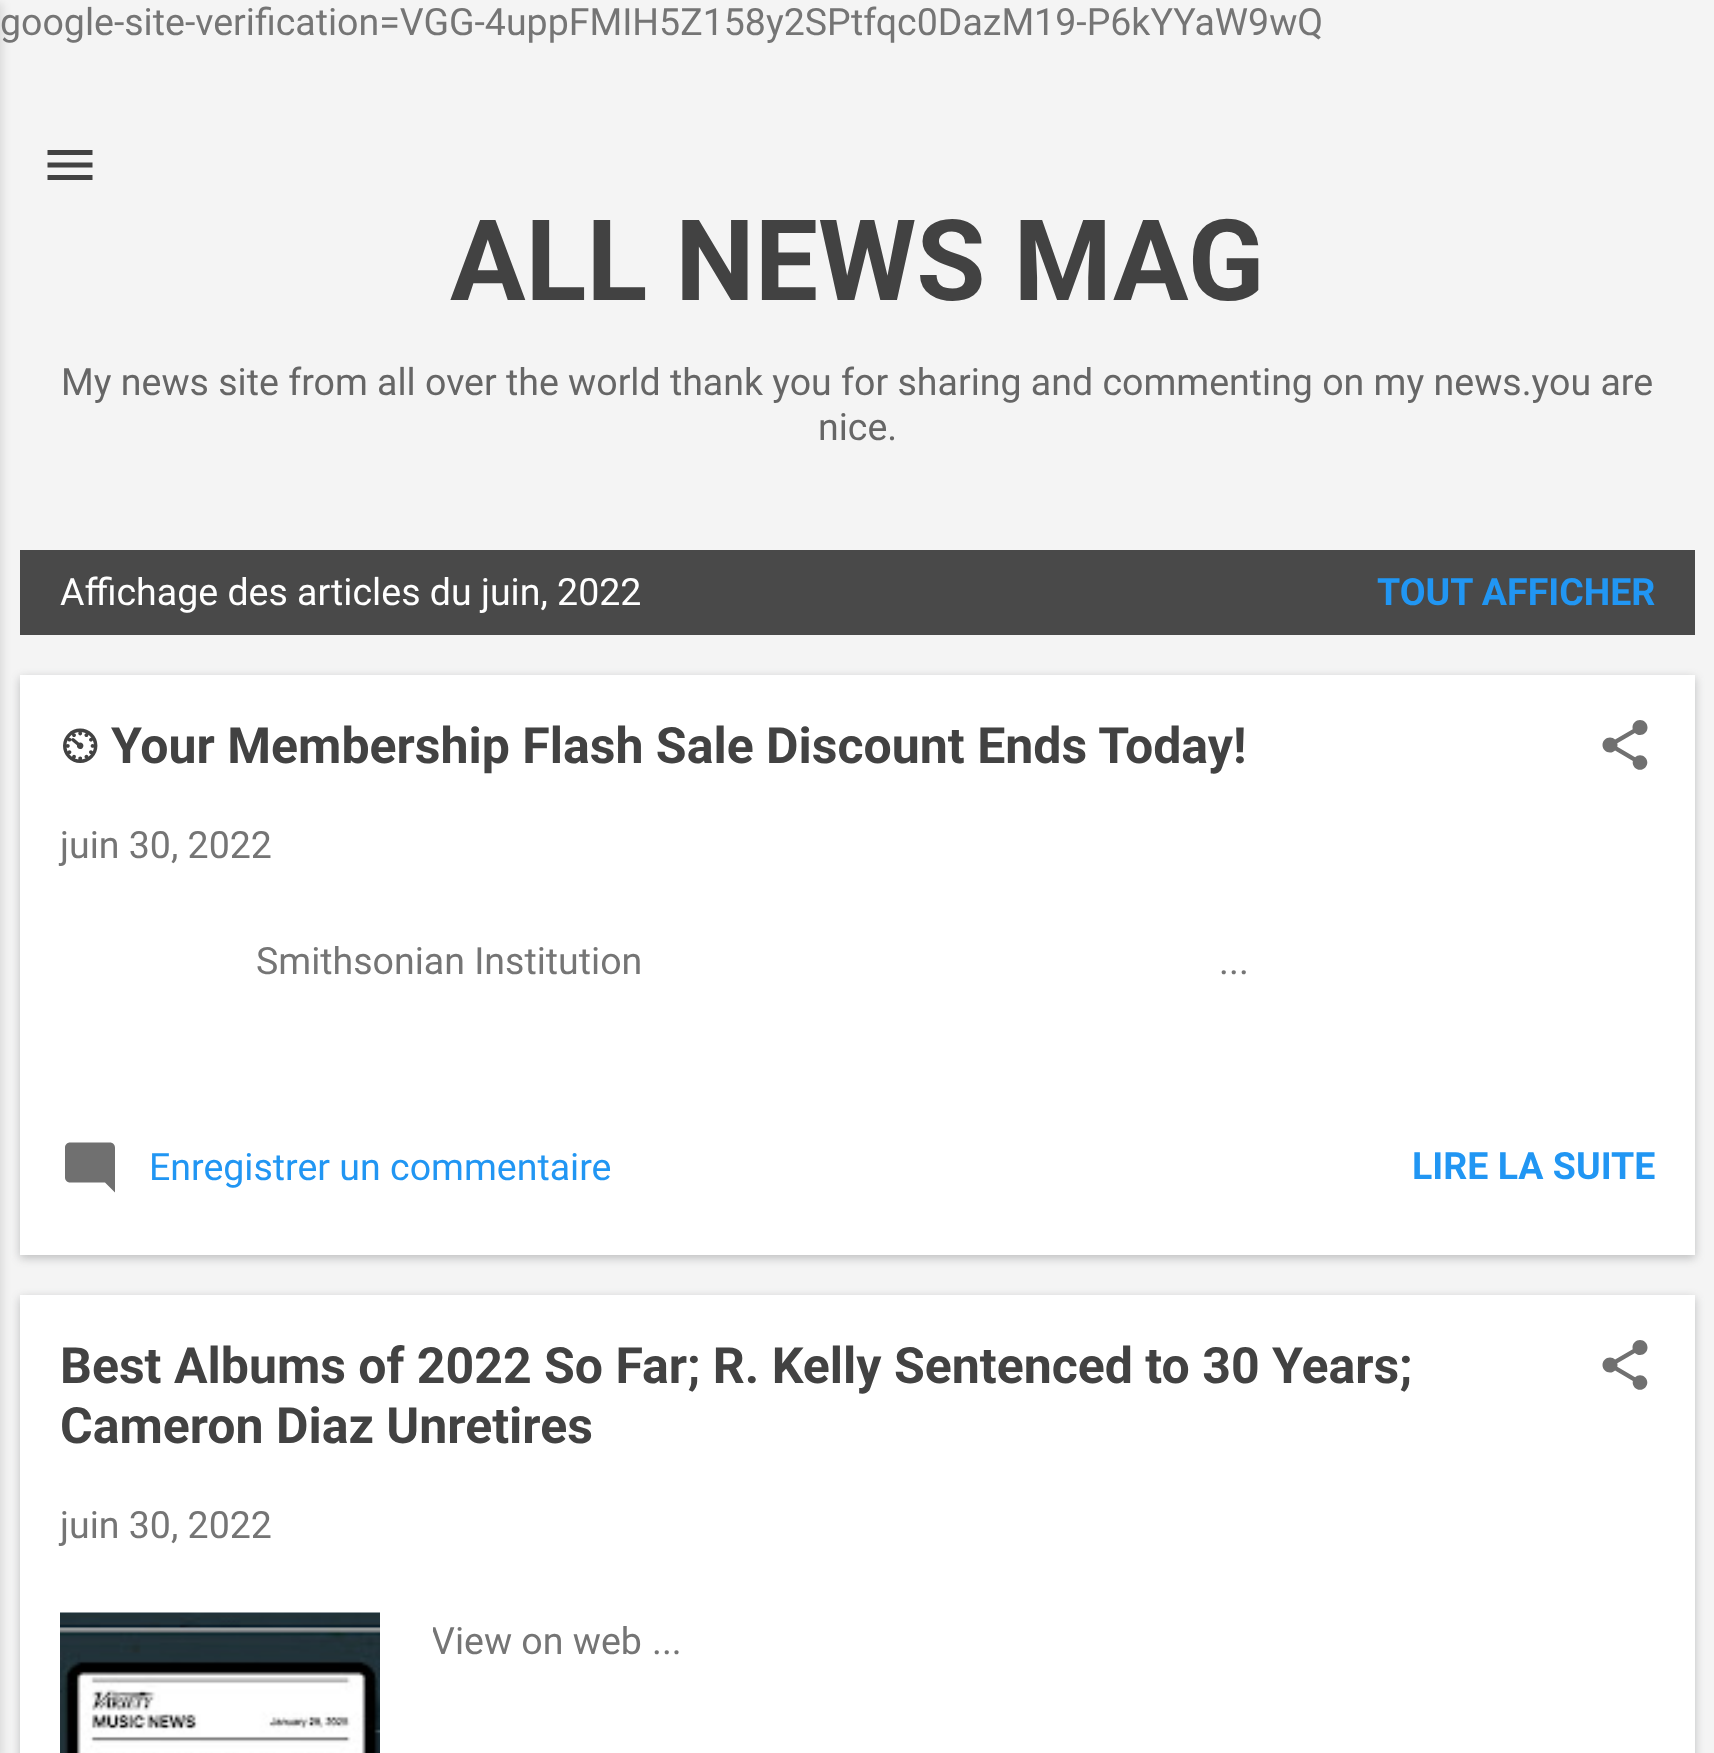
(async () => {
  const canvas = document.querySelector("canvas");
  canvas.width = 1714;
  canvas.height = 1753;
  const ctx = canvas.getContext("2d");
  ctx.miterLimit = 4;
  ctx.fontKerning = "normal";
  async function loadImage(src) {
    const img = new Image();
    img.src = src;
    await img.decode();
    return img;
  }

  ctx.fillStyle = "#f4f4f4";
  ctx.fillRect(0, 0, 1714, 1753);
  ctx.fillStyle = "rgba(0, 0, 0, 0.1)";
  ctx.filter = "blur(4px)";
  ctx.beginPath();
  ctx.rect(-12, 3, 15, 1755);
  ctx.fill();
  ctx.filter = "none";
  ctx.drawImage(await loadImage("img/1.png"), 47, 150, 46, 30);
  ctx.fillStyle = "#494949";
  ctx.fillRect(20, 550, 1675, 85);
  ctx.fillStyle = "rgba(60, 64, 67, 0.3)";
  ctx.filter = "blur(5px)";
  ctx.beginPath();
  ctx.rect(20, 678, 1675, 580);
  ctx.fill();
  ctx.filter = "none";
  ctx.fillStyle = "#ffffff";
  ctx.fillRect(20, 675, 1675, 580);
  ctx.drawImage(await loadImage("img/2.png"), 1602, 720, 46, 50);
  ctx.drawImage(await loadImage("img/3.png"), 65, 1142, 50, 51);
  ctx.fillStyle = "rgba(60, 64, 67, 0.3)";
  ctx.filter = "blur(5px)";
  ctx.beginPath();
  ctx.rect(20, 1298, 1675, 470);
  ctx.fill();
  ctx.filter = "none";
  ctx.fillStyle = "#ffffff";
  ctx.fillRect(20, 1295, 1675, 458);
  ctx.drawImage(await loadImage("img/4.png"), 1602, 1340, 46, 50);
  ctx.drawImage(await loadImage("img/5.png"), 60, 1612, 320, 141);
  ctx.font = "37.5px Roboto";
  ctx.fillStyle = "#757575";
  ctx.fillText("google-site-verification=VGG-4uppFMIH5Z158y2SPtfqc0DazM19-P6kYYaW9wQ", 0, 35);
  ctx.font = "bold 112.5px Roboto";
  ctx.fillStyle = "#424242";
  ctx.fillText("ALL NEWS MAG", 450, 300);
  ctx.font = "37.5px Roboto";
  ctx.fillStyle = "#666666";
  ctx.fillText("My news site from all over the world thank you for sharing and commenting on my news.you are", 61, 395);
  ctx.fillText("nice.", 818, 440);
  ctx.fillStyle = "#ffffff";
  ctx.fillText("Affichage des articles du juin, 2022", 60, 605);
  ctx.font = "bold 37.5px Roboto";
  ctx.fillStyle = "#2196f3";
  ctx.fillText("TOUT AFFICHER", 1377, 605);
  ctx.font = "bold 50px FreeSerif";
  ctx.fillStyle = "#424242";
  ctx.fillText("⏲", 60, 763);
  ctx.font = "bold 50px Roboto";
  ctx.fillText("Your Membership Flash Sale Discount Ends Today!", 111, 763);
  ctx.font = "37.5px Roboto";
  ctx.fillStyle = "#757575";
  for (const [text, x, y] of [
    ["juin 30, 2022", 60, 858],
    ["Smithsonian Institution", 256, 974],
    ["‌ ‌ ‌ ‌ ‌ ‌ ‌ ‌ ‌ ‌ ‌ ‌ ‌  ‌ ‌ ‌ ‌ ‌ ‌ ‌ ‌ ‌ ‌ ‌ ‌ ‌  ‌ ‌ ‌ ‌ ‌ ‌ ‌ ‌ ‌ ‌ ‌ ‌ ‌  ‌ ‌ ‌ ‌ ‌ ‌ ‌ ‌ ‌ ‌ ‌ ‌ ‌  ‌ ‌ ‌ ‌ ‌...", 661, 974],
  ]) {
    ctx.fillText(text, x, y);
  }
  ctx.fillStyle = "#2196f3";
  ctx.fillText("Enregistrer un commentaire", 149, 1180);
  ctx.font = "bold 37.5px Roboto";
  ctx.fillText("LIRE LA SUITE", 1412, 1179);
  ctx.font = "bold 50px Roboto";
  ctx.fillStyle = "#424242";
  ctx.fillText("Best Albums of 2022 So Far; R. Kelly Sentenced to 30 Years;", 60, 1383);
  ctx.fillText("Cameron Diaz Unretires", 60, 1443);
  ctx.font = "37.5px Roboto";
  ctx.fillStyle = "#757575";
  ctx.fillText("juin 30, 2022", 60, 1538);
  ctx.save();
  ctx.beginPath();
  ctx.rect(433, 1613, 1222, 60);
  ctx.clip();
  ctx.fillText("View on web", 431, 1654);
  ctx.restore();
  ctx.fillText("...", 652, 1654);
})();
